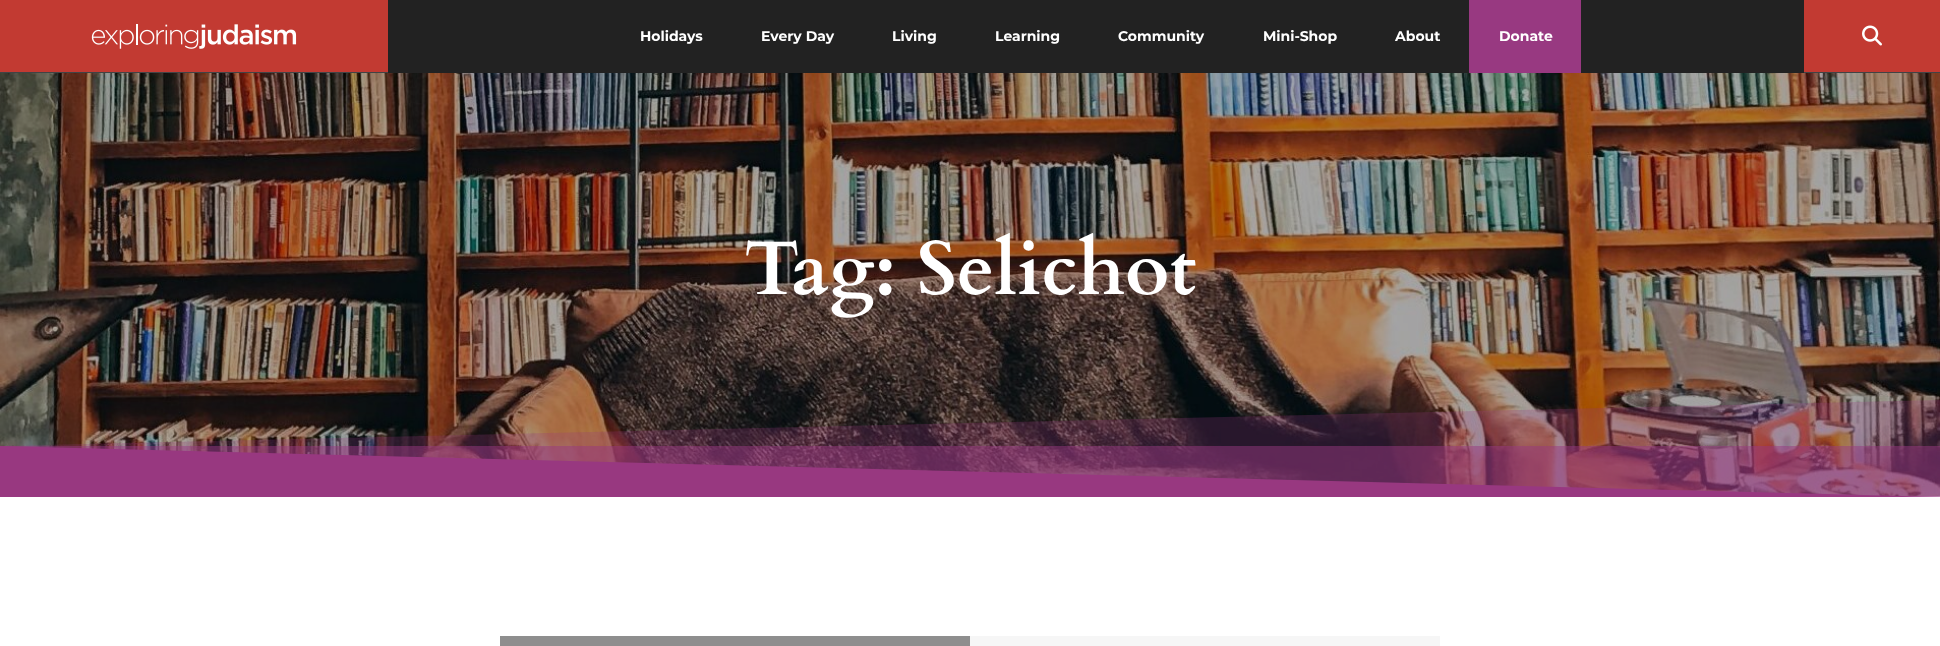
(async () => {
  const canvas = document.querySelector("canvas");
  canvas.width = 1940;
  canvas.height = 646;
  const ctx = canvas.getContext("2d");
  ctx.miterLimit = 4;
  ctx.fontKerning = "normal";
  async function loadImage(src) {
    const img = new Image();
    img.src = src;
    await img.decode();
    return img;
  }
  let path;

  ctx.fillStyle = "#ffffff";
  ctx.fillRect(0, 0, 1940, 646);
  ctx.fillStyle = "#414345";
  ctx.fillRect(0, 72, 1940, 1);
  ctx.fillStyle = "#c23a32";
  ctx.fillRect(0, 0, 388, 72);
  ctx.drawImage(await loadImage("img/1.png"), 91, 24, 206, 25);
  for (const [x, y, w, h, color] of [
    [388, 0, 1416, 73, "#222222"],
    [1469, 0, 112, 73, "#983981"],
    [1804, 0, 136, 72, "#c23a32"],
  ]) {
    ctx.fillStyle = color;
    ctx.fillRect(x, y, w, h);
  }
  ctx.drawImage(await loadImage("img/2.png"), 1862, 25, 20, 21);
  ctx.drawImage(await loadImage("img/3.png"), 0, 73, 1940, 423);
  ctx.fillStyle = "#983981";
  path = new Path2D("M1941 497H-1V446Z");
  ctx.fill(path);
  ctx.fillStyle = "rgba(152, 57, 129, 0.5)";
  ctx.fillRect(4, 446, 1936, 51);
  ctx.fillStyle = "rgba(152, 57, 129, 0.25)";
  path = new Path2D("M-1 497H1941V400L-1 446Z");
  ctx.fill(path);
  ctx.fillStyle = "#f6f6f6";
  ctx.fillRect(970, 636, 470, 10);
  ctx.fillStyle = "#8e8e8e";
  ctx.fillRect(500, 636, 470, 10);
  ctx.font = "bold 14px Montserrat";
  ctx.fillStyle = "#ffffff";
  for (const [text, x, y] of [
    ["Holidays", 640, 41],
    ["Every Day", 761, 41],
    ["Living", 892, 41],
    ["Learning", 995, 41],
    ["Community", 1118, 41],
    ["Mini-Shop", 1263, 41],
    ["About", 1395, 41],
    ["Donate", 1499, 41],
  ]) {
    ctx.fillText(text, x, y);
  }
  ctx.font = "bold 76px Cardo";
  ctx.fillText("Tag: Selichot", 744, 294);
})();
